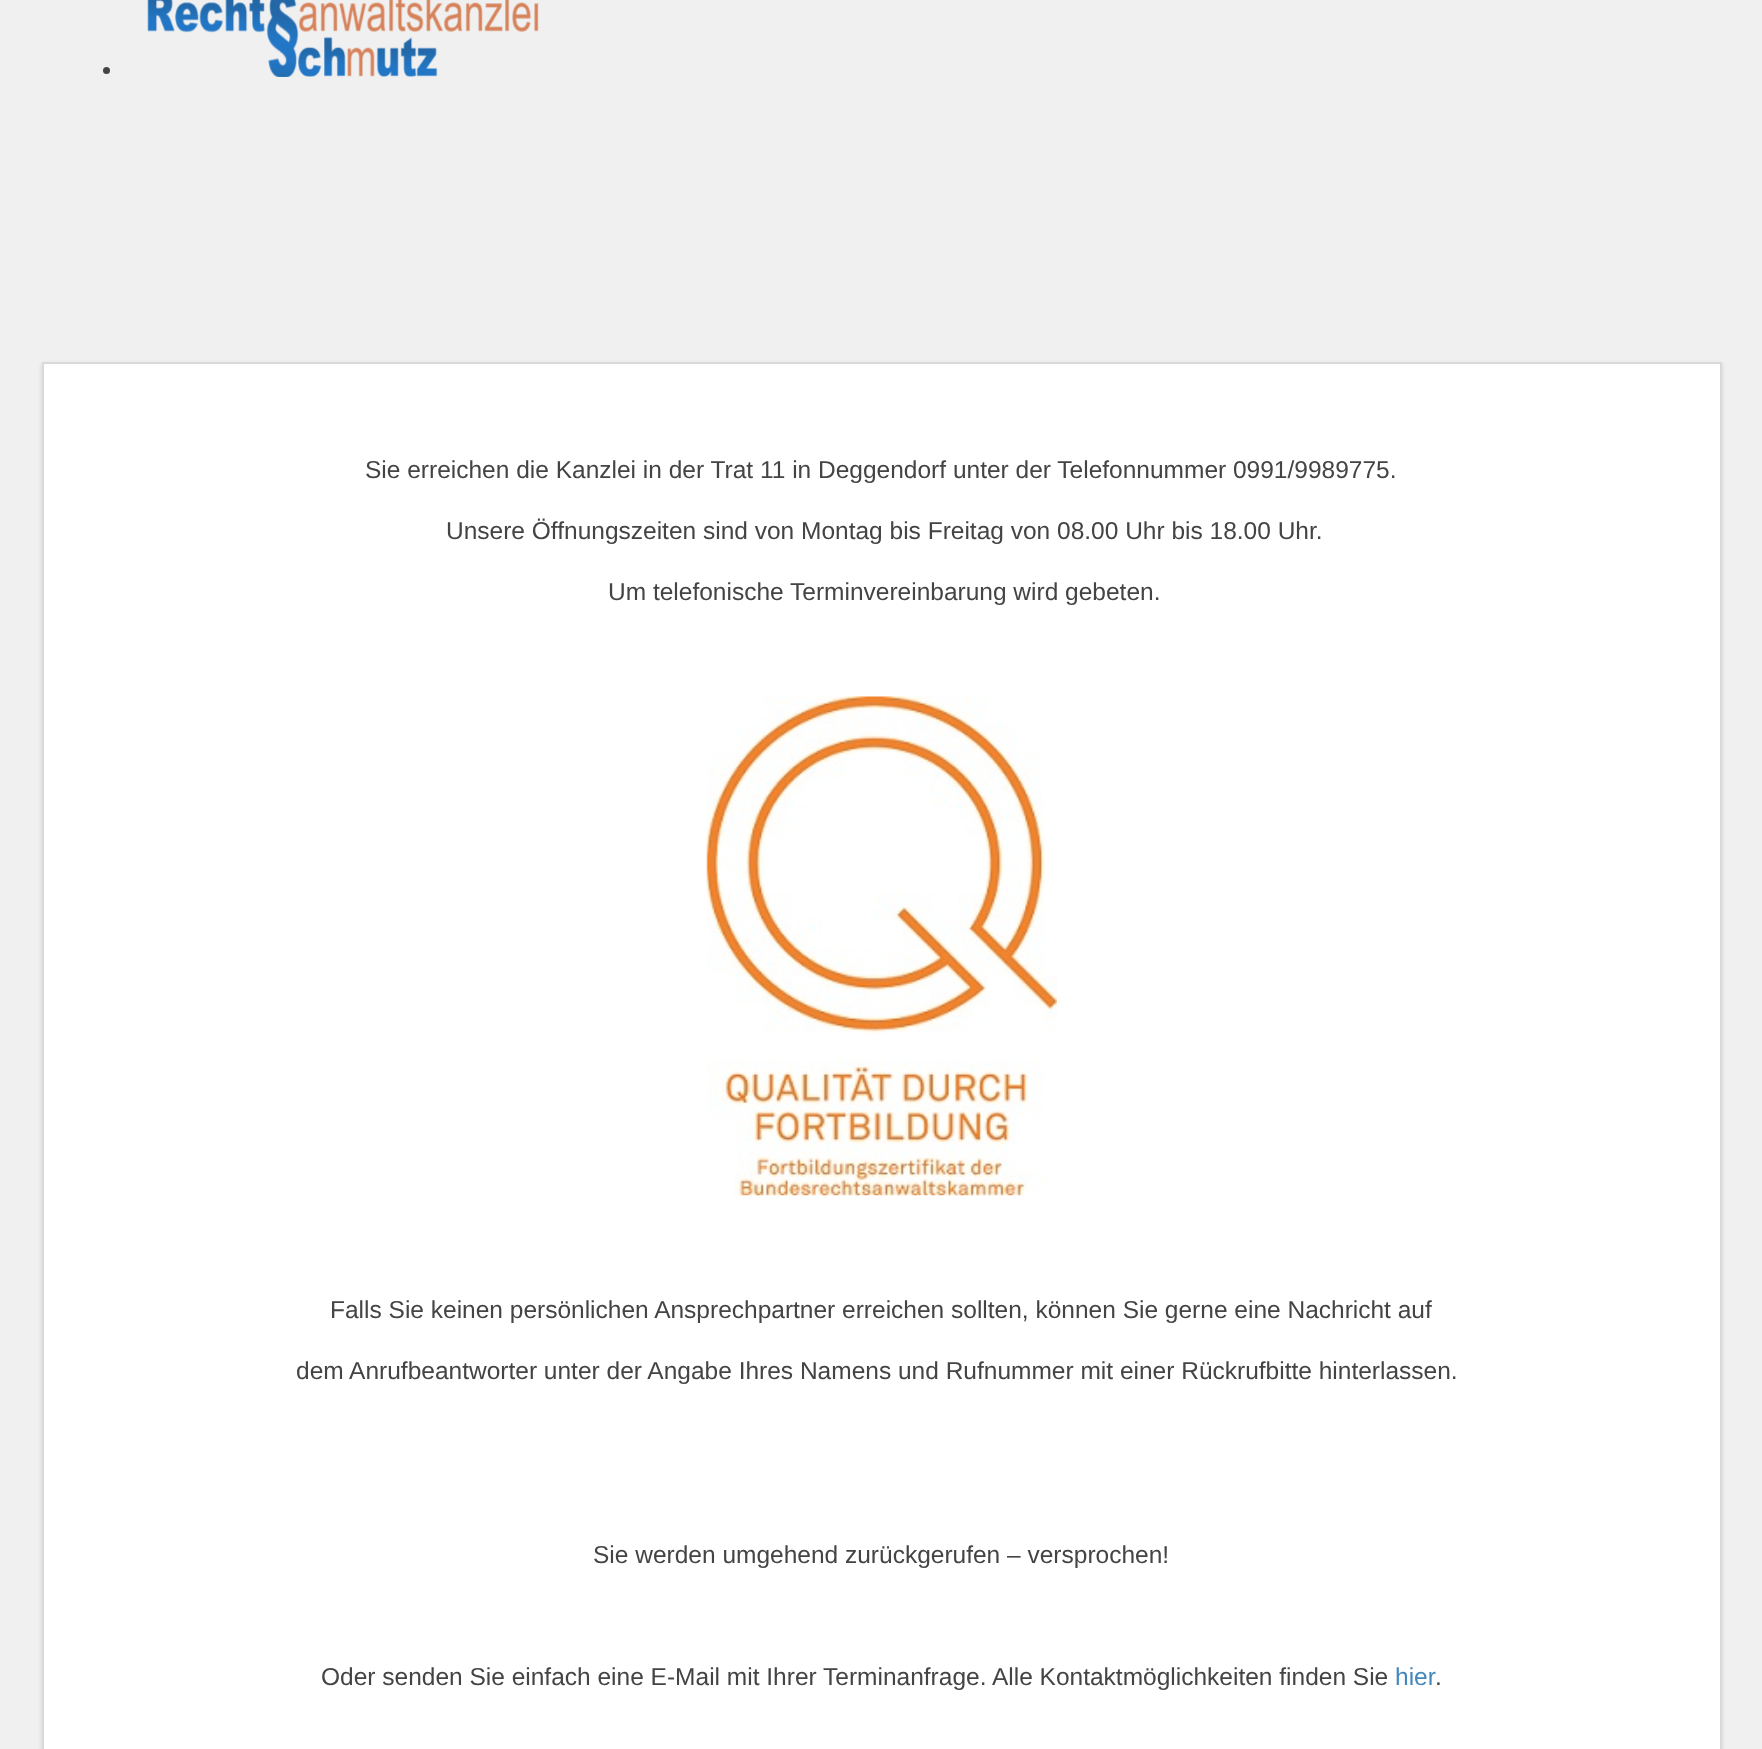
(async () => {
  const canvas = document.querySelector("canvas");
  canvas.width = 1762;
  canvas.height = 1749;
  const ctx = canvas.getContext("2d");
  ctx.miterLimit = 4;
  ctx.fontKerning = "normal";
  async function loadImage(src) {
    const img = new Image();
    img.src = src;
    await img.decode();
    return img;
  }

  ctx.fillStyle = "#f0f0f0";
  ctx.fillRect(0, 0, 1762, 1749);
  ctx.fillStyle = "#444444";
  ctx.beginPath();
  ctx.arc(106.5, 70.5, 3.5, 0, Math.PI * 2);
  ctx.fill();
  ctx.drawImage(await loadImage("img/1.png"), 147, 0, 392, 77);
  ctx.fillStyle = "rgba(0, 0, 0, 0.12)";
  ctx.filter = "blur(2px)";
  ctx.beginPath();
  ctx.rect(42, 364, 1680, 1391);
  ctx.fill();
  ctx.filter = "none";
  ctx.fillStyle = "#ffffff";
  ctx.beginPath();
  ctx.rect(43, 363, 1678, 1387);
  ctx.fill();
  ctx.strokeStyle = "#d9d9d9";
  ctx.lineWidth = 2;
  ctx.stroke();
  ctx.drawImage(await loadImage("img/2.png"), 706, 696, 351, 500);
  ctx.font = "24.5px Liberation Sans";
  ctx.fillStyle = "#444444";
  for (const [text, x, y] of [
    ["Sie erreichen die Kanzlei in der Trat 11 in Deggendorf unter der Telefonnummer 0991/9989775.", 365, 478],
    ["Unsere Öffnungszeiten sind von Montag bis Freitag von 08.00 Uhr bis 18.00 Uhr.", 446, 539],
    ["Um telefonische Terminvereinbarung wird gebeten.", 608, 600],
    ["Falls Sie keinen persönlichen Ansprechpartner erreichen sollten, können Sie gerne eine Nachricht auf", 330, 1318],
    ["dem Anrufbeantworter unter der Angabe Ihres Namens und Rufnummer mit einer Rückrufbitte hinterlassen.", 296, 1379],
    ["Sie werden umgehend zurückgerufen – versprochen!", 593, 1563],
    ["Oder senden Sie einfach eine E-Mail mit Ihrer Terminanfrage. Alle Kontaktmöglichkeiten finden Sie", 321, 1685],
  ]) {
    ctx.fillText(text, x, y);
  }
  ctx.fillStyle = "#4488bb";
  ctx.fillText("hier", 1395, 1685);
  ctx.fillStyle = "#444444";
  ctx.fillText(".", 1435, 1685);
})();
